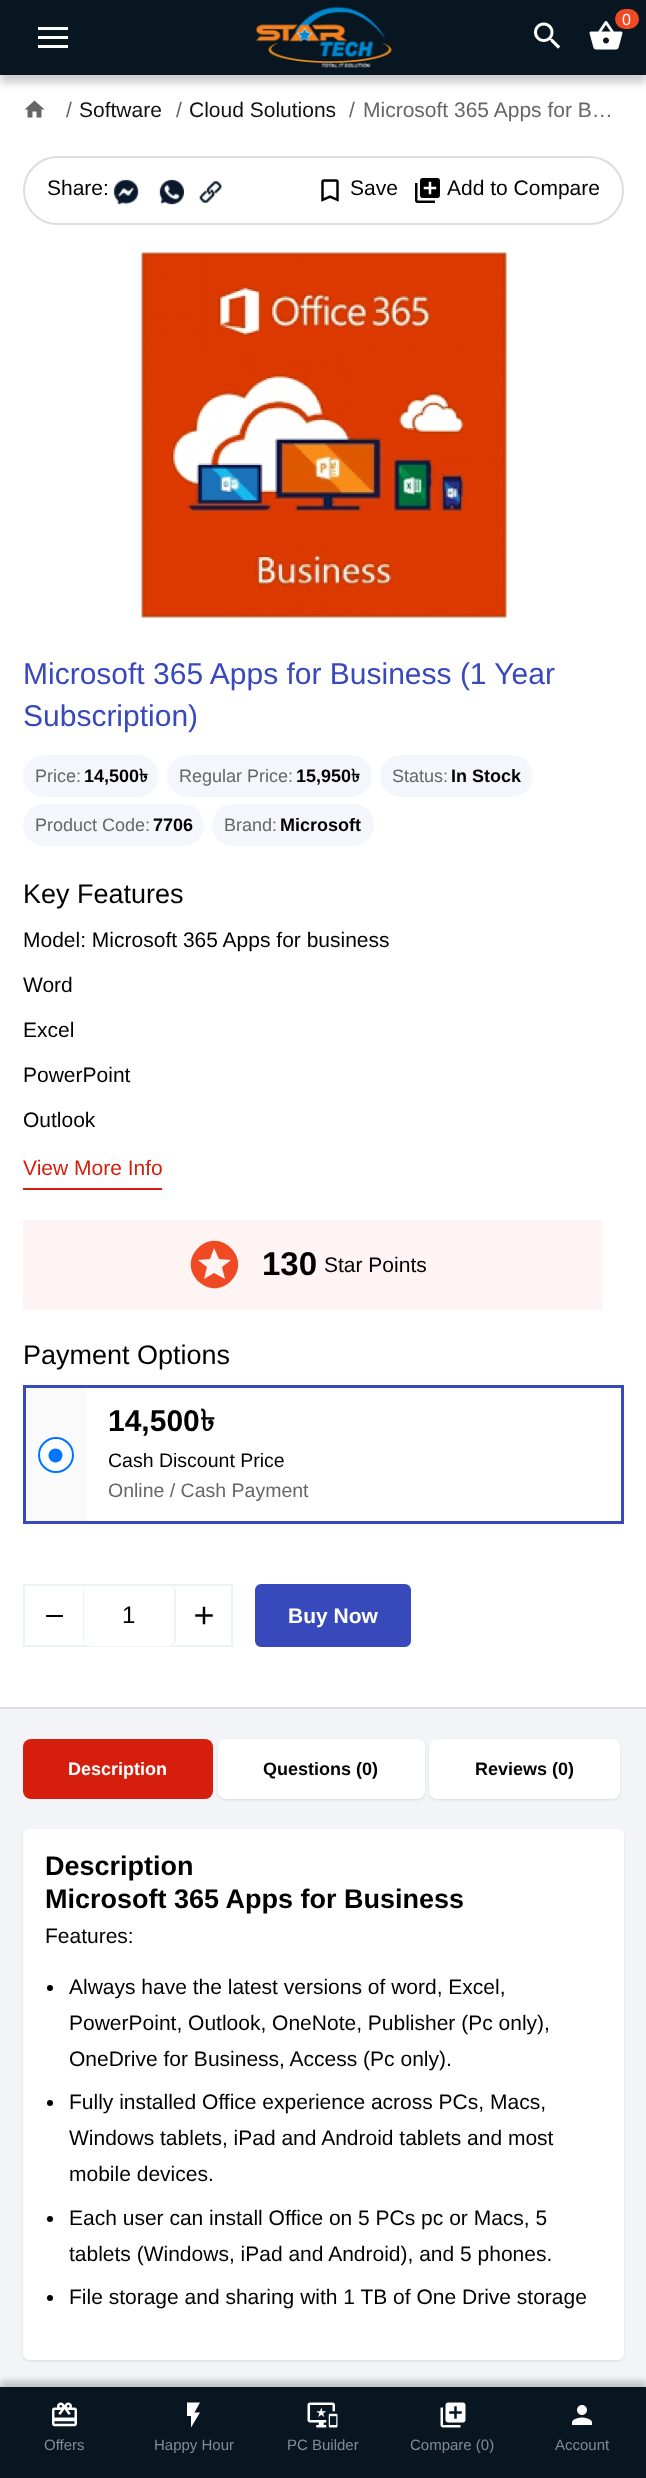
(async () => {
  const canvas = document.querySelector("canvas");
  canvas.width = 646;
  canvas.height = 2478;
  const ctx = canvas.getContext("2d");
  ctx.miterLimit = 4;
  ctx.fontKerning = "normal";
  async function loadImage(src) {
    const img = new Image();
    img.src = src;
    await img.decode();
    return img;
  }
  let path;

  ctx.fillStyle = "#ffffff";
  ctx.fillRect(0, 0, 646, 2478);
  ctx.fillStyle = "rgba(0, 0, 0, 0.2)";
  ctx.filter = "blur(4px)";
  ctx.beginPath();
  ctx.rect(0, 8, 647, 75);
  ctx.fill();
  ctx.filter = "none";
  ctx.fillStyle = "#081621";
  ctx.fillRect(0, 0, 646, 75);
  ctx.drawImage(await loadImage("img/1.png"), 256, 7, 136, 61);
  ctx.drawImage(await loadImage("img/2.png"), 589, 21, 34, 29);
  ctx.fillStyle = "#ef4a23";
  ctx.beginPath();
  ctx.roundRect(615, 9, 24, 20, 10);
  ctx.fill();
  ctx.drawImage(await loadImage("img/3.png"), 534, 22, 27, 27);
  for (const [x, y, w, h, color] of [
    [38, 27, 30, 3, "#ffffff"],
    [38, 36, 30, 3, "#ffffff"],
    [38, 45, 30, 3, "#ffffff"],
    [0, 1709, 646, 678, "#f2f4f8"],
  ]) {
    ctx.fillStyle = color;
    ctx.fillRect(x, y, w, h);
  }
  ctx.fillStyle = "#f5f6f9";
  path = new Path2D("M0 2385V2386H646V2477H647V2385Z");
  ctx.fill(path);
  ctx.fillStyle = "rgba(0, 0, 0, 0.2)";
  ctx.filter = "blur(3px)";
  ctx.beginPath();
  ctx.rect(0, 2381, 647, 91);
  ctx.fill();
  ctx.filter = "none";
  ctx.fillStyle = "#081621";
  ctx.fillRect(0, 2387, 646, 91);
  ctx.drawImage(await loadImage("img/4.png"), 52, 2402, 25, 25);
  ctx.fillStyle = "#ffffff";
  path = new Path2D("M187 2402.5H200L194.5 2412.5H200L191 2427.5V2416H187Z");
  ctx.fill(path);
  ctx.drawImage(await loadImage("img/5.png"), 307, 2402, 31, 26);
  ctx.drawImage(await loadImage("img/6.png"), 440, 2402, 26, 26);
  ctx.drawImage(await loadImage("img/7.png"), 572, 2405, 20, 20);
  ctx.drawImage(await loadImage("img/8.png"), 24, 100, 21, 18);
  ctx.beginPath();
  ctx.roundRect(24, 157, 599, 67, 33.5);
  ctx.strokeStyle = "#dddddd";
  ctx.lineWidth = 2;
  ctx.stroke();
  ctx.drawImage(await loadImage("img/9.png"), 113, 179, 26, 26);
  ctx.drawImage(await loadImage("img/10.png"), 159, 179, 25, 26);
  ctx.drawImage(await loadImage("img/11.png"), 199, 181, 23, 22);
  ctx.drawImage(await loadImage("img/12.png"), 321, 179, 18, 23);
  ctx.drawImage(await loadImage("img/13.png"), 415, 178, 25, 25);
  ctx.drawImage(await loadImage("img/14.png"), 140, 250, 369, 370);
  ctx.fillStyle = "#f5f6fc";
  ctx.beginPath();
  ctx.roundRect(23, 755, 136, 42, 21);
  ctx.fill();
  ctx.beginPath();
  ctx.roundRect(167, 755, 205, 42, 21);
  ctx.fill();
  ctx.beginPath();
  ctx.roundRect(380, 755, 153, 42, 21);
  ctx.fill();
  ctx.beginPath();
  ctx.roundRect(23, 804, 181, 42, 21);
  ctx.fill();
  ctx.beginPath();
  ctx.roundRect(212, 804, 162, 42, 21);
  ctx.fill();
  ctx.fillStyle = "#d51e0b";
  ctx.fillRect(23, 1188, 139, 2);
  ctx.fillStyle = "#fef4f4";
  ctx.fillRect(23, 1220, 579, 90);
  ctx.fillStyle = "#ef4a23";
  path = new Path2D("M225 1279L222 1267L231 1260L219 1259L214 1248L210 1259L198 1260L207 1267L204 1279L214 1273ZM198 1248C220 1226 253 1259 231 1281C209 1303 176 1270 198 1248Z");
  ctx.fill(path);
  ctx.fillStyle = "#fafafa";
  ctx.fillRect(26, 1388, 60, 133);
  ctx.strokeStyle = "#3749bb";
  ctx.lineWidth = 3;
  ctx.strokeRect(24.5, 1386.5, 598, 136);
  ctx.fillStyle = "#ffffff";
  ctx.beginPath();
  ctx.arc(56, 1455, 17, 0, Math.PI * 2);
  ctx.fill();
  ctx.strokeStyle = "#0075ff";
  ctx.lineWidth = 2;
  ctx.stroke();
  ctx.fillStyle = "#0075ff";
  ctx.beginPath();
  ctx.arc(55.5, 1455.5, 7, 0, Math.PI * 2);
  ctx.fill();
  ctx.strokeStyle = "#edf2f5";
  ctx.strokeRect(24, 1585, 208, 61);
  ctx.fillStyle = "#000000";
  ctx.fillRect(46, 1615, 17, 2);
  ctx.fillStyle = "#edf2f5";
  path = new Path2D("M87 1586C85 1587 83 1589 83 1592V1640C83 1643 86 1646 89 1646H167L170 1645L168 1646H90C87 1646 84 1643 84 1640V1592C84 1589 85 1587 87 1586Z");
  ctx.fill(path);
  path = new Path2D("M90 1645L92 1646H170C173 1646 176 1643 176 1640V1592C176 1589 174 1586 170 1586C176 1588 174 1595 174 1600V1632C174 1648 173 1646 155 1646Z");
  ctx.fill(path);
  ctx.fillStyle = "#ffffff";
  ctx.beginPath();
  ctx.roundRect(84, 1586, 90, 60, 6);
  ctx.fill();
  ctx.drawImage(await loadImage("img/15.png"), 195, 1606, 18, 19);
  ctx.fillStyle = "#3749bb";
  ctx.beginPath();
  ctx.roundRect(256.5, 1585.5, 153, 60, 4.5);
  ctx.fill();
  ctx.strokeStyle = "#3749bb";
  ctx.lineWidth = 3;
  ctx.stroke();
  ctx.fillStyle = "#dddddd";
  ctx.fillRect(0, 1707, 646, 2);
  ctx.fillStyle = "#d51e0b";
  ctx.beginPath();
  ctx.roundRect(23, 1739, 190, 60, 8);
  ctx.fill();
  ctx.fillStyle = "rgba(0, 0, 0, 0.1)";
  ctx.filter = "blur(1px)";
  ctx.beginPath();
  ctx.roundRect(218, 1740, 207, 60, 8);
  ctx.fill();
  ctx.filter = "none";
  ctx.fillStyle = "#ffffff";
  ctx.beginPath();
  ctx.roundRect(218, 1739, 207, 60, 8);
  ctx.fill();
  ctx.fillStyle = "rgba(0, 0, 0, 0.1)";
  ctx.filter = "blur(1px)";
  ctx.beginPath();
  ctx.roundRect(429, 1740, 191, 60, 8);
  ctx.fill();
  ctx.filter = "none";
  ctx.fillStyle = "#ffffff";
  ctx.beginPath();
  ctx.roundRect(429, 1739, 191, 60, 8);
  ctx.fill();
  ctx.fillStyle = "rgba(0, 0, 0, 0.1)";
  ctx.filter = "blur(1px)";
  ctx.beginPath();
  ctx.roundRect(23, 1830, 601, 531, 6);
  ctx.fill();
  ctx.filter = "none";
  ctx.fillStyle = "#ffffff";
  ctx.beginPath();
  ctx.roundRect(23, 1829, 601, 531, 6);
  ctx.fill();
  ctx.fillStyle = "#000000";
  ctx.beginPath();
  ctx.arc(50, 1988, 3, 0, Math.PI * 2);
  ctx.fill();
  ctx.beginPath();
  ctx.arc(50, 2103, 3, 0, Math.PI * 2);
  ctx.fill();
  ctx.beginPath();
  ctx.arc(50, 2219, 3, 0, Math.PI * 2);
  ctx.fill();
  ctx.beginPath();
  ctx.arc(50, 2298, 3, 0, Math.PI * 2);
  ctx.fill();
  ctx.font = "16px Liberation Sans";
  ctx.fillStyle = "#ffffff";
  ctx.fillText("0", 622, 25);
  ctx.font = "15px Liberation Sans";
  ctx.fillStyle = "#848b90";
  for (const [text, x, y] of [
    ["Offers", 44, 2450],
    ["Happy Hour", 154, 2450],
    ["PC Builder", 287, 2450],
    ["Compare (0)", 410, 2450],
    ["Account", 555, 2450],
  ]) {
    ctx.fillText(text, x, y);
  }
  ctx.font = "21px Liberation Sans";
  ctx.fillStyle = "#666666";
  ctx.fillText("/", 66, 117);
  ctx.fillStyle = "#111111";
  ctx.fillText("Software", 79, 117);
  ctx.fillStyle = "#666666";
  ctx.fillText("/", 176, 117);
  ctx.fillStyle = "#111111";
  ctx.fillText("Cloud Solutions", 189, 117);
  ctx.fillStyle = "#666666";
  ctx.fillText("/", 349, 117);
  ctx.fillText("Microsoft 365 Apps for B…", 363, 117);
  ctx.fillStyle = "#000000";
  for (const [text, x, y] of [
    ["Share:", 47, 195],
    ["Save", 350, 195],
    ["Add to Compare", 447, 195],
  ]) {
    ctx.fillText(text, x, y);
  }
  ctx.font = "30px Liberation Sans";
  ctx.fillStyle = "#3749bb";
  ctx.fillText("Microsoft 365 Apps for Business (1 Year", 23, 684);
  ctx.fillText("Subscription)", 23, 726);
  ctx.font = "18px Liberation Sans";
  ctx.fillStyle = "#666666";
  ctx.fillText("Price:", 35, 782);
  ctx.font = "bold 18px Liberation Sans";
  ctx.fillStyle = "#000000";
  ctx.fillText("14,500", 84, 782);
  ctx.font = "bold 18px Lohit Bengali";
  ctx.fillText("৳", 139, 782);
  ctx.font = "18px Liberation Sans";
  ctx.fillStyle = "#666666";
  ctx.fillText("Regular Price:", 179, 782);
  ctx.font = "bold 18px Liberation Sans";
  ctx.fillStyle = "#000000";
  ctx.fillText("15,950", 296, 782);
  ctx.font = "bold 18px Lohit Bengali";
  ctx.fillText("৳", 351, 782);
  ctx.font = "18px Liberation Sans";
  ctx.fillStyle = "#666666";
  ctx.fillText("Status:", 392, 782);
  ctx.font = "bold 18px Liberation Sans";
  ctx.fillStyle = "#000000";
  ctx.fillText("In Stock", 451, 782);
  ctx.font = "18px Liberation Sans";
  ctx.fillStyle = "#666666";
  ctx.fillText("Product Code:", 35, 831);
  ctx.font = "bold 18px Liberation Sans";
  ctx.fillStyle = "#000000";
  ctx.fillText("7706", 153, 831);
  ctx.font = "18px Liberation Sans";
  ctx.fillStyle = "#666666";
  ctx.fillText("Brand:", 224, 831);
  ctx.font = "bold 18px Liberation Sans";
  ctx.fillStyle = "#000000";
  ctx.fillText("Microsoft", 280, 831);
  ctx.font = "27px Liberation Sans";
  ctx.fillText("Key Features", 23, 903);
  ctx.font = "21px Liberation Sans";
  for (const [text, x, y] of [
    ["Model: Microsoft 365 Apps for business", 23, 947],
    ["Word", 23, 992],
    ["Excel", 23, 1037],
    ["PowerPoint", 23, 1082],
    ["Outlook", 23, 1127],
  ]) {
    ctx.fillText(text, x, y);
  }
  ctx.fillStyle = "#d51e0b";
  ctx.fillText("View More Info", 23, 1175);
  ctx.font = "bold 33px Liberation Sans";
  ctx.fillStyle = "#000000";
  ctx.fillText("130", 262, 1275);
  ctx.font = "21px Liberation Sans";
  ctx.fillText("Star Points", 324, 1272);
  ctx.font = "27px Liberation Sans";
  ctx.fillText("Payment Options", 23, 1364);
  ctx.font = "bold 30px Liberation Sans";
  ctx.fillText("14,500", 108, 1431);
  ctx.font = "bold 30px Lohit Bengali";
  ctx.fillText("৳", 200, 1431);
  ctx.font = "19.5px Liberation Sans";
  ctx.fillText("Cash Discount Price", 108, 1467);
  ctx.fillStyle = "#666666";
  ctx.fillText("Online / Cash Payment", 108, 1497);
  ctx.font = "24px Liberation Sans";
  ctx.fillStyle = "#000000";
  ctx.fillText("1", 122, 1623);
  ctx.font = "bold 21px Liberation Sans";
  ctx.fillStyle = "#ffffff";
  ctx.fillText("Buy Now", 288, 1623);
  ctx.font = "bold 18px Liberation Sans";
  ctx.fillText("Description", 68, 1775);
  ctx.fillStyle = "#000000";
  ctx.fillText("Questions (0)", 263, 1775);
  ctx.fillText("Reviews (0)", 475, 1775);
  ctx.font = "bold 27px Liberation Sans";
  ctx.fillText("Description", 45, 1875);
  ctx.fillText("Microsoft 365 Apps for Business", 45, 1908);
  ctx.font = "21px Liberation Sans";
  for (const [text, x, y] of [
    ["Features:", 45, 1943],
    ["Always have the latest versions of word, Excel,", 69, 1994],
    ["PowerPoint, Outlook, OneNote, Publisher (Pc only),", 69, 2030],
    ["OneDrive for Business, Access (Pc only).", 69, 2066],
    ["Fully installed Office experience across PCs, Macs,", 69, 2109],
    ["Windows tablets, iPad and Android tablets and most", 69, 2145],
    ["mobile devices.", 69, 2181],
    ["Each user can install Office on 5 PCs pc or Macs, 5", 69, 2225],
    ["tablets (Windows, iPad and Android), and 5 phones.", 69, 2261],
    ["File storage and sharing with 1 TB of One Drive storage", 69, 2304],
  ]) {
    ctx.fillText(text, x, y);
  }
})();
